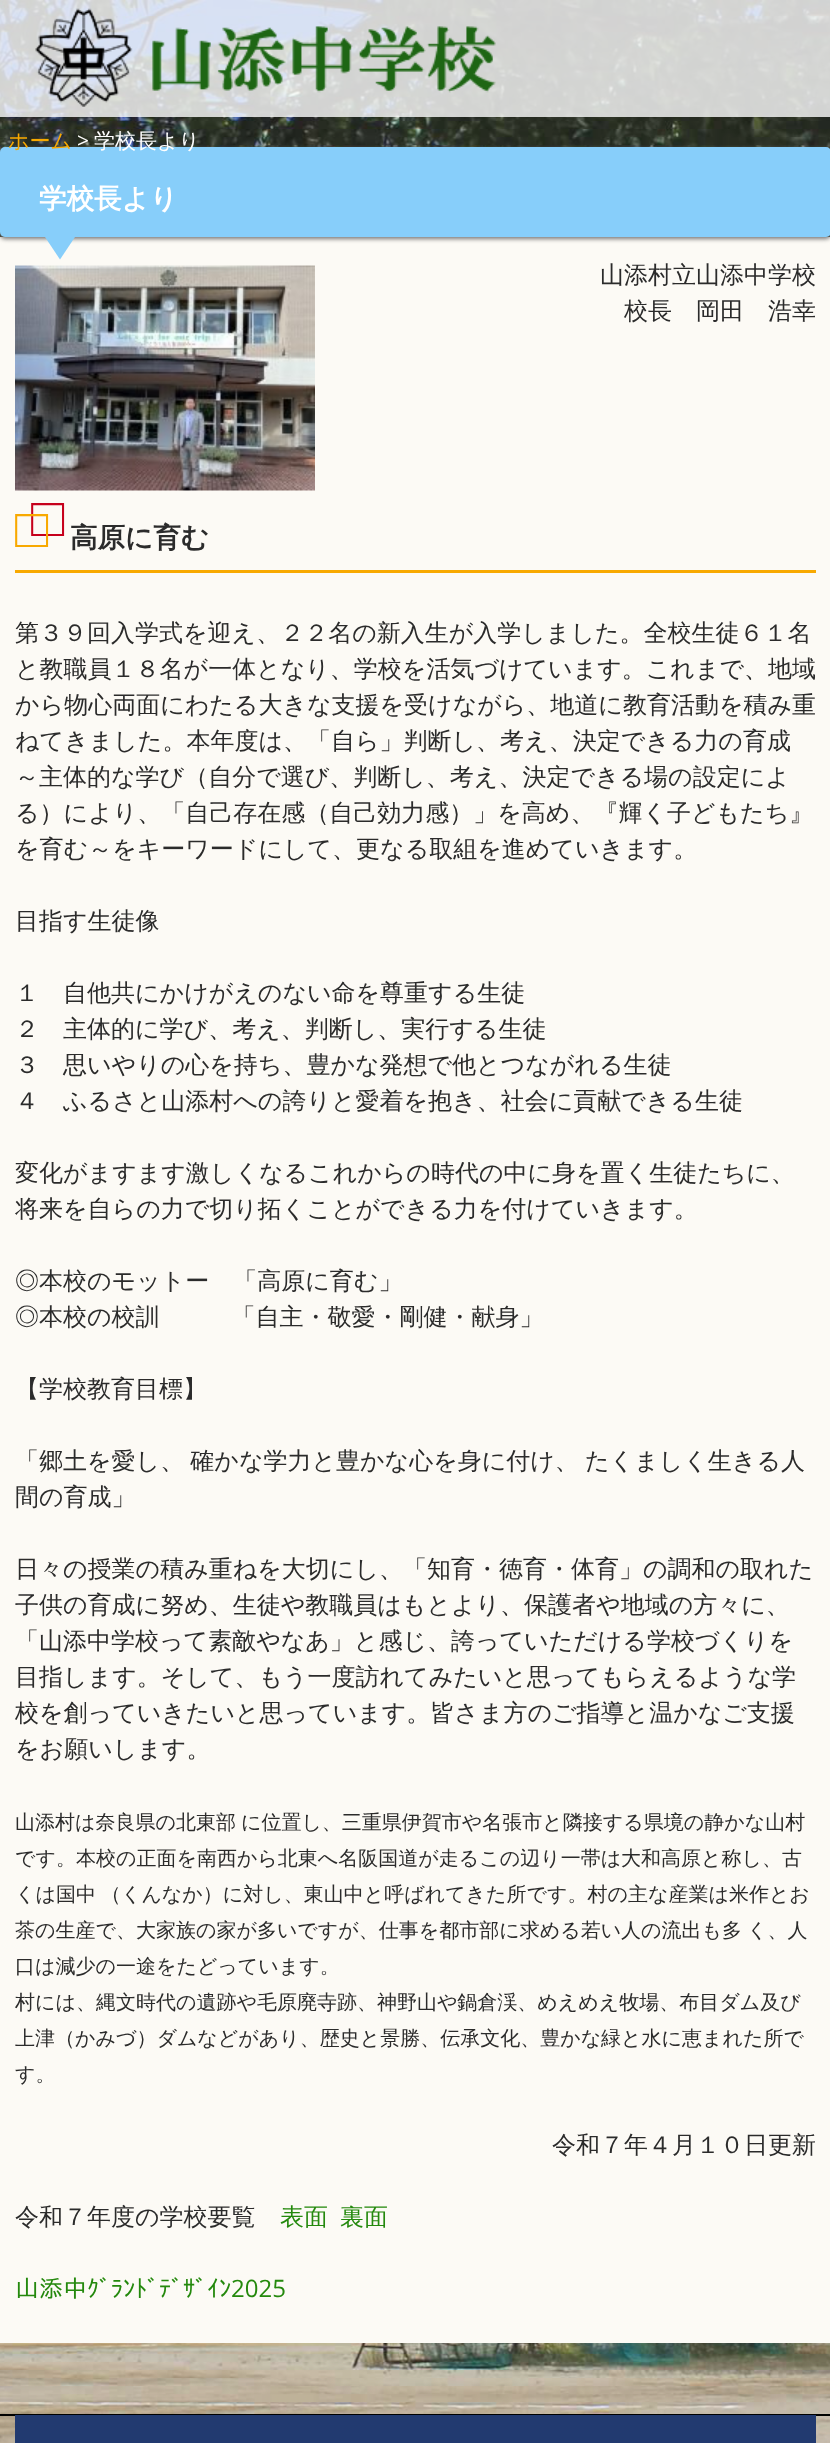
(async () => {
  const canvas = document.querySelector("canvas");
  canvas.width = 830;
  canvas.height = 2443;
  const ctx = canvas.getContext("2d");
  ctx.miterLimit = 4;
  ctx.fontKerning = "normal";
  async function loadImage(src) {
    const img = new Image();
    img.src = src;
    await img.decode();
    return img;
  }
  let path;

  ctx.fillStyle = "#ffffff";
  ctx.fillRect(0, 0, 830, 2443);
  ctx.drawImage(await loadImage("img/1.png"), 0, 0, 830, 2443);
  ctx.fillStyle = "rgba(255, 255, 255, 0.8)";
  ctx.fillRect(0, 0, 830, 117);
  ctx.drawImage(await loadImage("img/2.png"), 35, 8, 461, 99);
  ctx.fillStyle = "#fcfaf5";
  ctx.fillRect(0, 237, 830, 2106);
  ctx.fillStyle = "#777777";
  ctx.filter = "blur(2px)";
  ctx.beginPath();
  ctx.roundRect(0, 149, 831, 90, 5);
  ctx.fill();
  ctx.filter = "none";
  ctx.fillStyle = "#87cefa";
  ctx.beginPath();
  ctx.roundRect(0, 147, 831, 90, 5);
  ctx.fill();
  path = new Path2D("M45 237H75L60 259.5Z");
  ctx.fill(path);
  ctx.drawImage(await loadImage("img/3.png"), 15, 265, 300, 226);
  for (const [x, y, w, h, color] of [
    [15, 570, 801, 3, "#f8a900"],
    [0, 2414, 830, 2, "#000000"],
    [15, 2415, 801, 28, "#223a70"],
  ]) {
    ctx.fillStyle = color;
    ctx.fillRect(x, y, w, h);
  }
  ctx.font = "500 21px WenQuanYi Zen Hei";
  ctx.fillStyle = "#f8a900";
  ctx.fillText("ホーム", 8, 148);
  ctx.font = "21px Open Sans";
  ctx.fillStyle = "#ffffff";
  ctx.fillText(">", 77, 148);
  ctx.font = "500 21px WenQuanYi Zen Hei";
  ctx.fillText("学校長より", 94, 148);
  ctx.font = "bold 27.5px WenQuanYi Zen Hei";
  ctx.fillText("学校長より", 39, 208);
  ctx.font = "500 24px WenQuanYi Zen Hei";
  ctx.fillStyle = "#2b2b2b";
  ctx.fillText("山添村立山添中学校", 600, 283);
  ctx.fillText("校長　岡田　浩幸", 624, 319);
  ctx.font = "bold 55px Liberation Sans";
  ctx.fillStyle = "#c6001c";
  ctx.fillText("□", 31, 536);
  ctx.fillStyle = "#f8a900";
  ctx.fillText("□", 15, 547);
  ctx.font = "bold 27.5px WenQuanYi Zen Hei";
  ctx.fillStyle = "#2b2b2b";
  ctx.fillText("高原に育む", 70, 547);
  ctx.font = "500 24px WenQuanYi Zen Hei";
  for (const [text, x, y] of [
    ["第３９回入学式を迎え、２２名の新入生が入学しました。全校生徒６１名", 15, 641],
    ["と教職員１８名が一体となり、学校を活気づけています。これまで、地域", 15, 677],
    ["から物心両面にわたる大きな支援を受けながら、地道に教育活動を積み重", 15, 713],
    ["ねてきました。本年度は、「自ら」判断し、考え、決定できる力の育成", 15, 749],
    ["～主体的な学び（自分で選び、判断し、考え、決定できる場の設定によ", 15, 785],
    ["る）により、「自己存在感（自己効力感）」を高め、『輝く子どもたち』", 15, 821],
    ["を育む～をキーワードにして、更なる取組を進めていきます。", 15, 857],
    ["目指す生徒像", 15, 929],
    ["１　自他共にかけがえのない命を尊重する生徒", 15, 1001],
    ["２　主体的に学び、考え、判断し、実行する生徒", 15, 1037],
    ["３　思いやりの心を持ち、豊かな発想で他とつながれる生徒", 15, 1073],
    ["４　ふるさと山添村への誇りと愛着を抱き、社会に貢献できる生徒", 15, 1109],
    ["変化がますます激しくなるこれからの時代の中に身を置く生徒たちに、", 15, 1181],
    ["将来を自らの力で切り拓くことができる力を付けていきます。", 15, 1217],
    ["◎本校のモットー　「高原に育む」", 15, 1289],
    ["◎本校の校訓　　　「自主・敬愛・剛健・献身」", 15, 1325],
    ["【学校教育目標】", 15, 1397],
  ]) {
    ctx.fillText(text, x, y);
  }
  ctx.wordSpacing = "-1px";
  ctx.fillText("「郷土を愛し、 確かな学力と豊かな心を身に付け、 たくましく生きる人", 15, 1469);
  ctx.wordSpacing = "0px";
  for (const [text, x, y] of [
    ["間の育成」", 15, 1505],
    ["日々の授業の積み重ねを大切にし、「知育・徳育・体育」の調和の取れた", 15, 1577],
    ["子供の育成に努め、生徒や教職員はもとより、保護者や地域の方々に、", 15, 1613],
    ["「山添中学校って素敵やなあ」と感じ、誇っていただける学校づくりを", 15, 1649],
    ["目指します。そして、もう一度訪れてみたいと思ってもらえるような学", 15, 1685],
    ["校を創っていきたいと思っています。皆さま方のご指導と温かなご支援", 15, 1721],
    ["をお願いします。", 15, 1757],
  ]) {
    ctx.fillText(text, x, y);
  }
  ctx.wordSpacing = "-1px";
  ctx.font = "500 20px WenQuanYi Zen Hei";
  ctx.fillText("山添村は奈良県の北東部 に位置し、三重県伊賀市や名張市と隣接する県境の静かな山村", 15, 1829);
  ctx.wordSpacing = "0px";
  ctx.fillText("です。本校の正面を南西から北東へ名阪国道が走るこの辺り一帯は大和高原と称し、古", 15, 1865);
  ctx.wordSpacing = "-1px";
  ctx.fillText("くは国中 （くんなか）に対し、東山中と呼ばれてきた所です。村の主な産業は米作とお", 15, 1901);
  ctx.fillText("茶の生産で、大家族の家が多いですが、仕事を都市部に求める若い人の流出も多 く、人", 15, 1937);
  ctx.wordSpacing = "0px";
  for (const [text, x, y] of [
    ["口は減少の一途をたどっています。", 15, 1973],
    ["村には、縄文時代の遺跡や毛原廃寺跡、神野山や鍋倉渓、めえめえ牧場、布目ダム及び", 15, 2009],
    ["上津（かみづ）ダムなどがあり、歴史と景勝、伝承文化、豊かな緑と水に恵まれた所で", 15, 2045],
    ["す。", 15, 2081],
  ]) {
    ctx.fillText(text, x, y);
  }
  ctx.font = "500 24px WenQuanYi Zen Hei";
  ctx.fillText("令和７年４月１０日更新", 552, 2153);
  ctx.fillText("令和７年度の学校要覧", 15, 2225);
  ctx.fillStyle = "#24890d";
  ctx.fillText("表面", 280, 2225);
  ctx.fillText("裏面", 340, 2225);
  ctx.font = "24px IPAPGothic";
  ctx.fillText("山添中ｸﾞﾗﾝﾄﾞﾃﾞｻﾞｲﾝ", 15, 2297);
  ctx.font = "24px Open Sans";
  ctx.fillText("2025", 231, 2297);
})();
